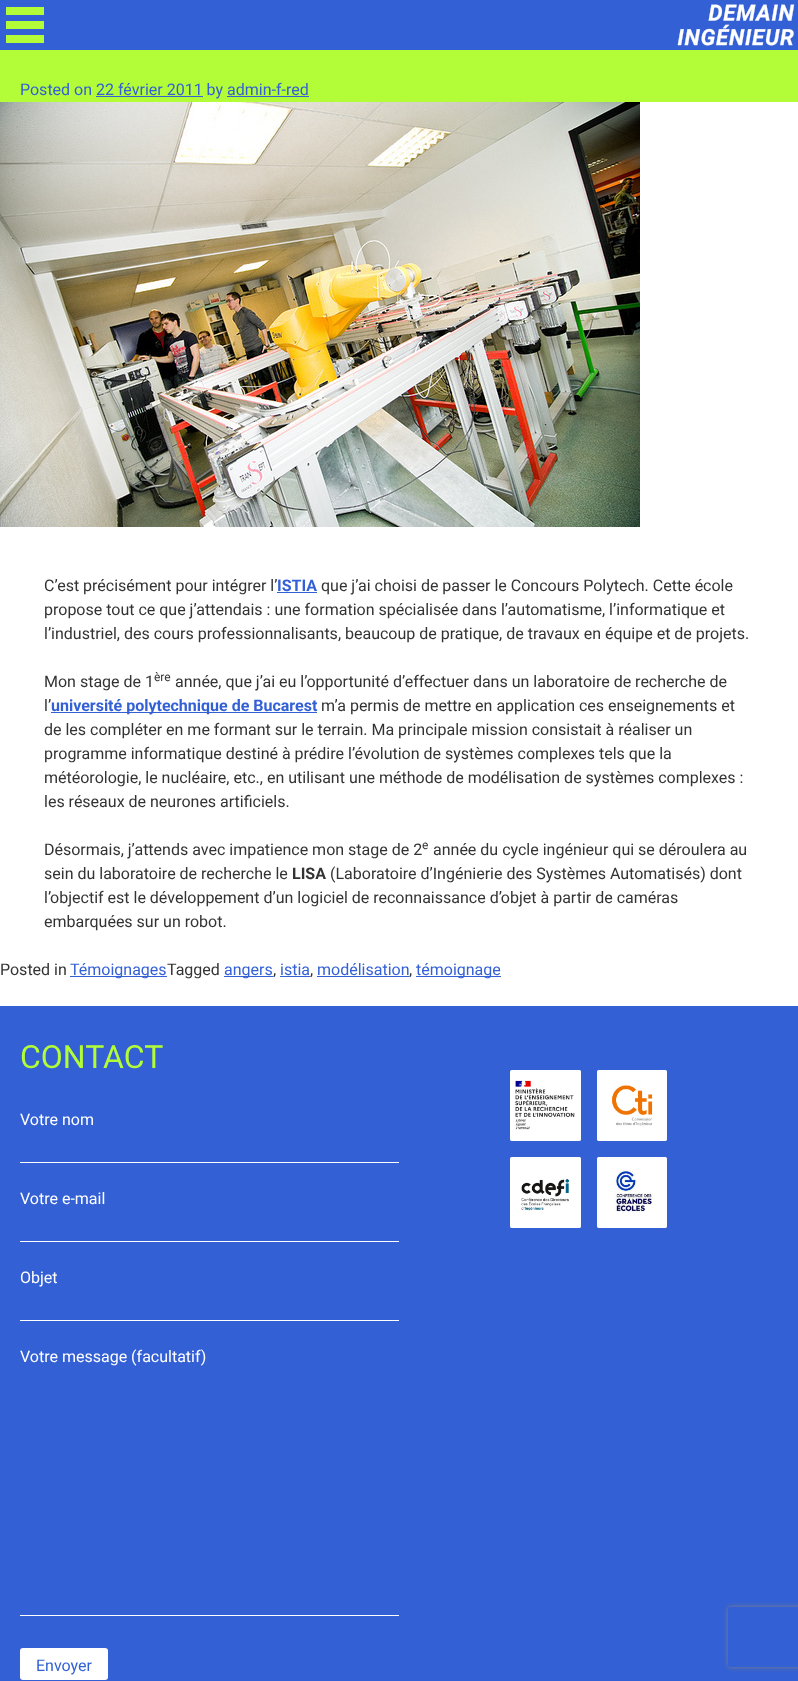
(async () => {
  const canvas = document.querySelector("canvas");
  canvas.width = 798;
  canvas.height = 1681;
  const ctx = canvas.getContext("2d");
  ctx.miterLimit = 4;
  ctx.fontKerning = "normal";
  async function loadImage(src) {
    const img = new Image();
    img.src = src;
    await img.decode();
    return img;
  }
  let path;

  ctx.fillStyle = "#3360d4";
  ctx.fillRect(0, 0, 798, 1681);
  for (const [x, y, w, h, color] of [
    [6, 21, 38, 8, "#b3fd38"],
    [6, 7, 38, 8, "#b3fd38"],
    [6, 35, 38, 8, "#b3fd38"],
  ]) {
    ctx.fillStyle = color;
    ctx.fillRect(x, y, w, h);
  }
  ctx.drawImage(await loadImage("img/1.png"), 677, 4, 118, 42);
  for (const [x, y, w, h, color] of [
    [0, 102, 798, 904, "#ffffff"],
    [0, 50, 798, 52, "#b3fd38"],
    [96, 96, 107, 1, "#3360d4"],
    [227, 96, 82, 1, "#3360d4"],
  ]) {
    ctx.fillStyle = color;
    ctx.fillRect(x, y, w, h);
  }
  ctx.drawImage(await loadImage("img/2.png"), 0, 102, 640, 425);
  for (const [x, y, w, h, color] of [
    [277, 592, 40, 1, "#3360d4"],
    [51, 712, 266, 1, "#3360d4"],
    [70, 976, 97, 1, "#3360d4"],
    [224, 976, 49, 1, "#3360d4"],
    [280, 976, 30, 1, "#3360d4"],
    [317, 976, 92, 1, "#3360d4"],
    [416, 976, 85, 1, "#3360d4"],
    [20, 1162, 379, 1, "#ffffff"],
    [20, 1241, 379, 1, "#ffffff"],
    [20, 1320, 379, 1, "#ffffff"],
    [20, 1615, 379, 1, "#ffffff"],
  ]) {
    ctx.fillStyle = color;
    ctx.fillRect(x, y, w, h);
  }
  ctx.beginPath();
  ctx.roundRect(20, 1648, 88, 32, 3);
  ctx.fill();
  ctx.drawImage(await loadImage("img/3.png"), 510, 1070, 71, 71);
  ctx.drawImage(await loadImage("img/4.png"), 597, 1070, 70, 71);
  ctx.drawImage(await loadImage("img/5.png"), 510, 1157, 71, 71);
  ctx.drawImage(await loadImage("img/6.png"), 597, 1157, 70, 71);
  ctx.save();
  path = new Path2D("M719 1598H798V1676H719ZM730 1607H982C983 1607 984 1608 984 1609V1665C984 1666 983 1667 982 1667H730C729 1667 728 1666 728 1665V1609C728 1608 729 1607 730 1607Z");
  ctx.clip(path, "evenodd");
  ctx.fillStyle = "#808080";
  ctx.filter = "blur(2.5px)";
  ctx.beginPath();
  ctx.roundRect(728, 1607, 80, 60, 2);
  ctx.fill();
  ctx.filter = "none";
  ctx.restore();
  ctx.font = "16px Roboto";
  ctx.fillStyle = "#3360d4";
  ctx.fillText("Posted on 22 février 2011 by admin-f-red", 20, 95);
  ctx.fillStyle = "#333333";
  ctx.fillText("C’est précisément pour intégrer l’", 44, 591);
  ctx.font = "bold 16px Roboto";
  ctx.fillStyle = "#3360d4";
  ctx.fillText("ISTIA", 277, 591);
  ctx.font = "16px Roboto";
  ctx.fillStyle = "#333333";
  for (const [text, x, y] of [
    ["que j’ai choisi de passer le Concours Polytech. Cette école", 321, 591],
    ["propose tout ce que j’attendais : une formation spécialisée dans l’automatisme, l’informatique et", 44, 615],
    ["l’industriel, des cours professionnalisants, beaucoup de pratique, de travaux en équipe et de projets.", 44, 639],
    ["Mon stage de 1", 44, 687],
  ]) {
    ctx.fillText(text, x, y);
  }
  ctx.font = "12px Roboto";
  ctx.fillText("ère", 154, 681);
  ctx.font = "16px Roboto";
  ctx.fillText("année, que j’ai eu l’opportunité d’effectuer dans un laboratoire de recherche de", 175, 687);
  ctx.fillText("l’", 44, 711);
  ctx.font = "bold 16px Roboto";
  ctx.fillStyle = "#3360d4";
  ctx.fillText("université polytechnique de Bucarest", 51, 711);
  ctx.font = "16px Roboto";
  ctx.fillStyle = "#333333";
  for (const [text, x, y] of [
    ["m’a permis de mettre en application ces enseignements et", 321, 711],
    ["de les compléter en me formant sur le terrain. Ma principale mission consistait à réaliser un", 44, 735],
    ["programme informatique destiné à prédire l’évolution de systèmes complexes tels que la", 44, 759],
    ["météorologie, le nucléaire, etc., en utilisant une méthode de modélisation de systèmes complexes :", 44, 783],
    ["les réseaux de neurones artificiels.", 44, 807],
    ["Désormais, j’attends avec impatience mon stage de 2", 44, 855],
  ]) {
    ctx.fillText(text, x, y);
  }
  ctx.font = "12px Roboto";
  ctx.fillText("e", 422, 849);
  ctx.font = "16px Roboto";
  ctx.fillText("année du cycle ingénieur qui se déroulera au", 433, 855);
  ctx.fillText("sein du laboratoire de recherche le", 44, 879);
  ctx.font = "bold 16px Roboto";
  ctx.fillText("LISA", 292, 879);
  ctx.font = "16px Roboto";
  for (const [text, x, y] of [
    ["(Laboratoire d’Ingénierie des Systèmes Automatisés) dont", 330, 879],
    ["l’objectif est le développement d’un logiciel de reconnaissance d’objet à partir de caméras", 44, 903],
    ["embarquées sur un robot.", 44, 927],
    ["Posted in", 0, 975],
  ]) {
    ctx.fillText(text, x, y);
  }
  ctx.fillStyle = "#3360d4";
  ctx.fillText("Témoignages", 70, 975);
  ctx.fillStyle = "#333333";
  ctx.fillText("Tagged", 167, 975);
  ctx.fillStyle = "#3360d4";
  ctx.fillText("angers", 224, 975);
  ctx.fillStyle = "#333333";
  ctx.fillText(",", 273, 975);
  ctx.fillStyle = "#3360d4";
  ctx.fillText("istia", 280, 975);
  ctx.fillStyle = "#333333";
  ctx.fillText(",", 310, 975);
  ctx.fillStyle = "#3360d4";
  ctx.fillText("modélisation", 317, 975);
  ctx.fillStyle = "#333333";
  ctx.fillText(",", 409, 975);
  ctx.fillStyle = "#3360d4";
  ctx.fillText("témoignage", 416, 975);
  ctx.font = "32px Roboto";
  ctx.fillStyle = "#b3fd38";
  ctx.fillText("CONTACT", 20, 1068);
  ctx.font = "16px Roboto";
  ctx.fillStyle = "#ffffff";
  for (const [text, x, y] of [
    ["Votre nom", 20, 1125],
    ["Votre e-mail", 20, 1204],
    ["Objet", 20, 1283],
    ["Votre message (facultatif)", 20, 1362],
  ]) {
    ctx.fillText(text, x, y);
  }
  ctx.fillStyle = "#3360d4";
  ctx.fillText("Envoyer", 36, 1671);
})();
